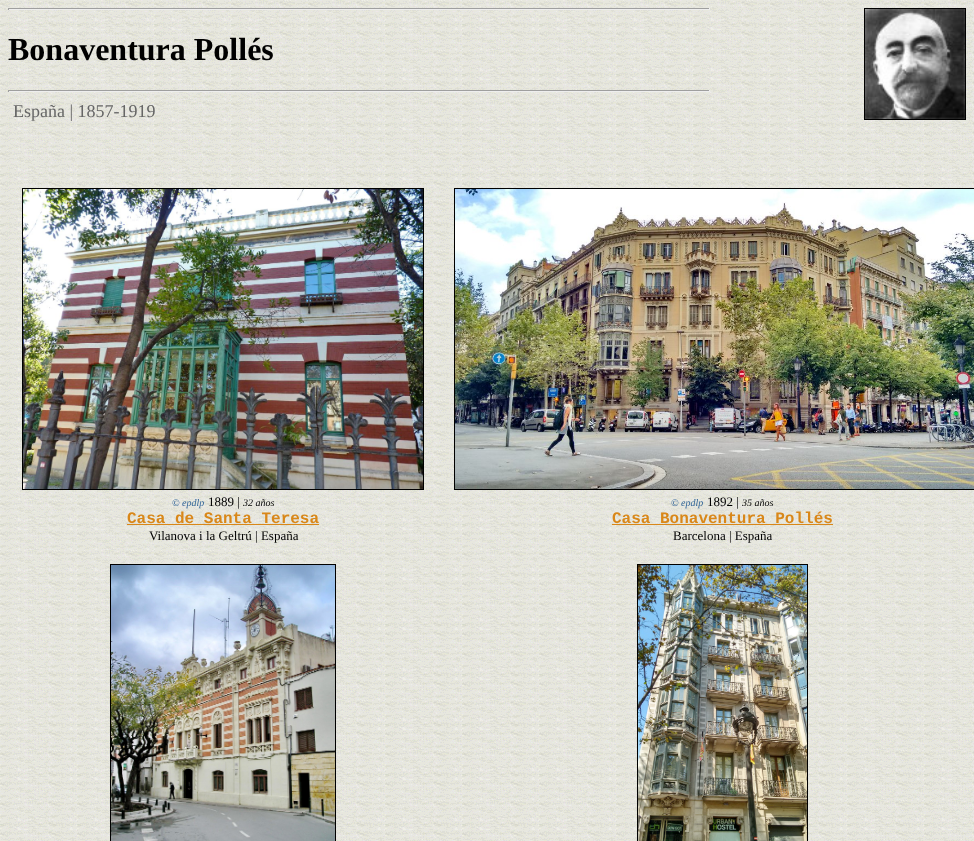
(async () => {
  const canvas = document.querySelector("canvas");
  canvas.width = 974;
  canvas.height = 841;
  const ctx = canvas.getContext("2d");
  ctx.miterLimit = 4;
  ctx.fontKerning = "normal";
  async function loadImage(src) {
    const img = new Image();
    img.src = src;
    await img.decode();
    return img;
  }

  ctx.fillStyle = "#ffffff";
  ctx.fillRect(0, 0, 974, 841);
  ctx.drawImage(await loadImage("img/1.png"), 0, 0, 974, 841);
  for (const [x, y, w, h, color] of [
    [8, 8, 702, 1, "#9f9f9f"],
    [709, 8, 1, 2, "#eeeeee"],
    [8, 9, 702, 1, "#eeeeee"],
    [8, 8, 1, 2, "#9f9f9f"],
  ]) {
    ctx.fillStyle = color;
    ctx.fillRect(x, y, w, h);
  }
  ctx.strokeStyle = "#000000";
  ctx.strokeRect(864.5, 8.5, 101, 111);
  ctx.drawImage(await loadImage("img/2.png"), 865, 9, 100, 110);
  for (const [x, y, w, h, color] of [
    [8, 90, 702, 1, "#9f9f9f"],
    [709, 90, 1, 2, "#eeeeee"],
    [8, 91, 702, 1, "#eeeeee"],
    [8, 90, 1, 2, "#9f9f9f"],
  ]) {
    ctx.fillStyle = color;
    ctx.fillRect(x, y, w, h);
  }
  ctx.strokeRect(22.5, 188.5, 401, 301);
  ctx.drawImage(await loadImage("img/3.png"), 23, 189, 400, 300);
  ctx.fillStyle = "#d98719";
  ctx.fillRect(127, 524, 192, 1);
  ctx.strokeRect(454.5, 188.5, 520, 301);
  ctx.drawImage(await loadImage("img/4.png"), 455, 189, 519, 300);
  ctx.fillRect(612, 524, 221, 1);
  ctx.strokeRect(110.5, 564.5, 225, 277);
  ctx.drawImage(await loadImage("img/5.png"), 111, 565, 224, 276);
  ctx.strokeRect(637.5, 564.5, 170, 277);
  ctx.drawImage(await loadImage("img/6.png"), 638, 565, 169, 276);
  ctx.font = "bold 32px Liberation Serif";
  ctx.fillStyle = "#000000";
  ctx.fillText("Bonaventura Pollés", 8, 60);
  ctx.font = "18px Liberation Serif";
  ctx.fillStyle = "#666666";
  ctx.fillText("España | 1857-1919", 13, 117);
  ctx.font = "italic 10px Liberation Serif";
  ctx.fillStyle = "#336699";
  ctx.fillText("© epdlp", 172, 506);
  ctx.font = "13px Liberation Serif";
  ctx.fillStyle = "#000000";
  ctx.fillText("1889 |", 208, 506);
  ctx.font = "italic 10px Liberation Serif";
  ctx.fillText("32 años", 243, 506);
  ctx.font = "bold 16px Liberation Mono";
  ctx.fillStyle = "#d98719";
  ctx.fillText("Casa de Santa Teresa", 127, 523);
  ctx.font = "13px Liberation Serif";
  ctx.fillStyle = "#000000";
  ctx.fillText("Vilanova i la Geltrú | España", 149, 540);
  ctx.font = "italic 10px Liberation Serif";
  ctx.fillStyle = "#336699";
  ctx.fillText("© epdlp", 671, 506);
  ctx.font = "13px Liberation Serif";
  ctx.fillStyle = "#000000";
  ctx.fillText("1892 |", 707, 506);
  ctx.font = "italic 10px Liberation Serif";
  ctx.fillText("35 años", 742, 506);
  ctx.font = "bold 16px Liberation Mono";
  ctx.fillStyle = "#d98719";
  ctx.fillText("Casa Bonaventura Pollés", 612, 523);
  ctx.font = "13px Liberation Serif";
  ctx.fillStyle = "#000000";
  ctx.fillText("Barcelona | España", 673, 540);
})();
